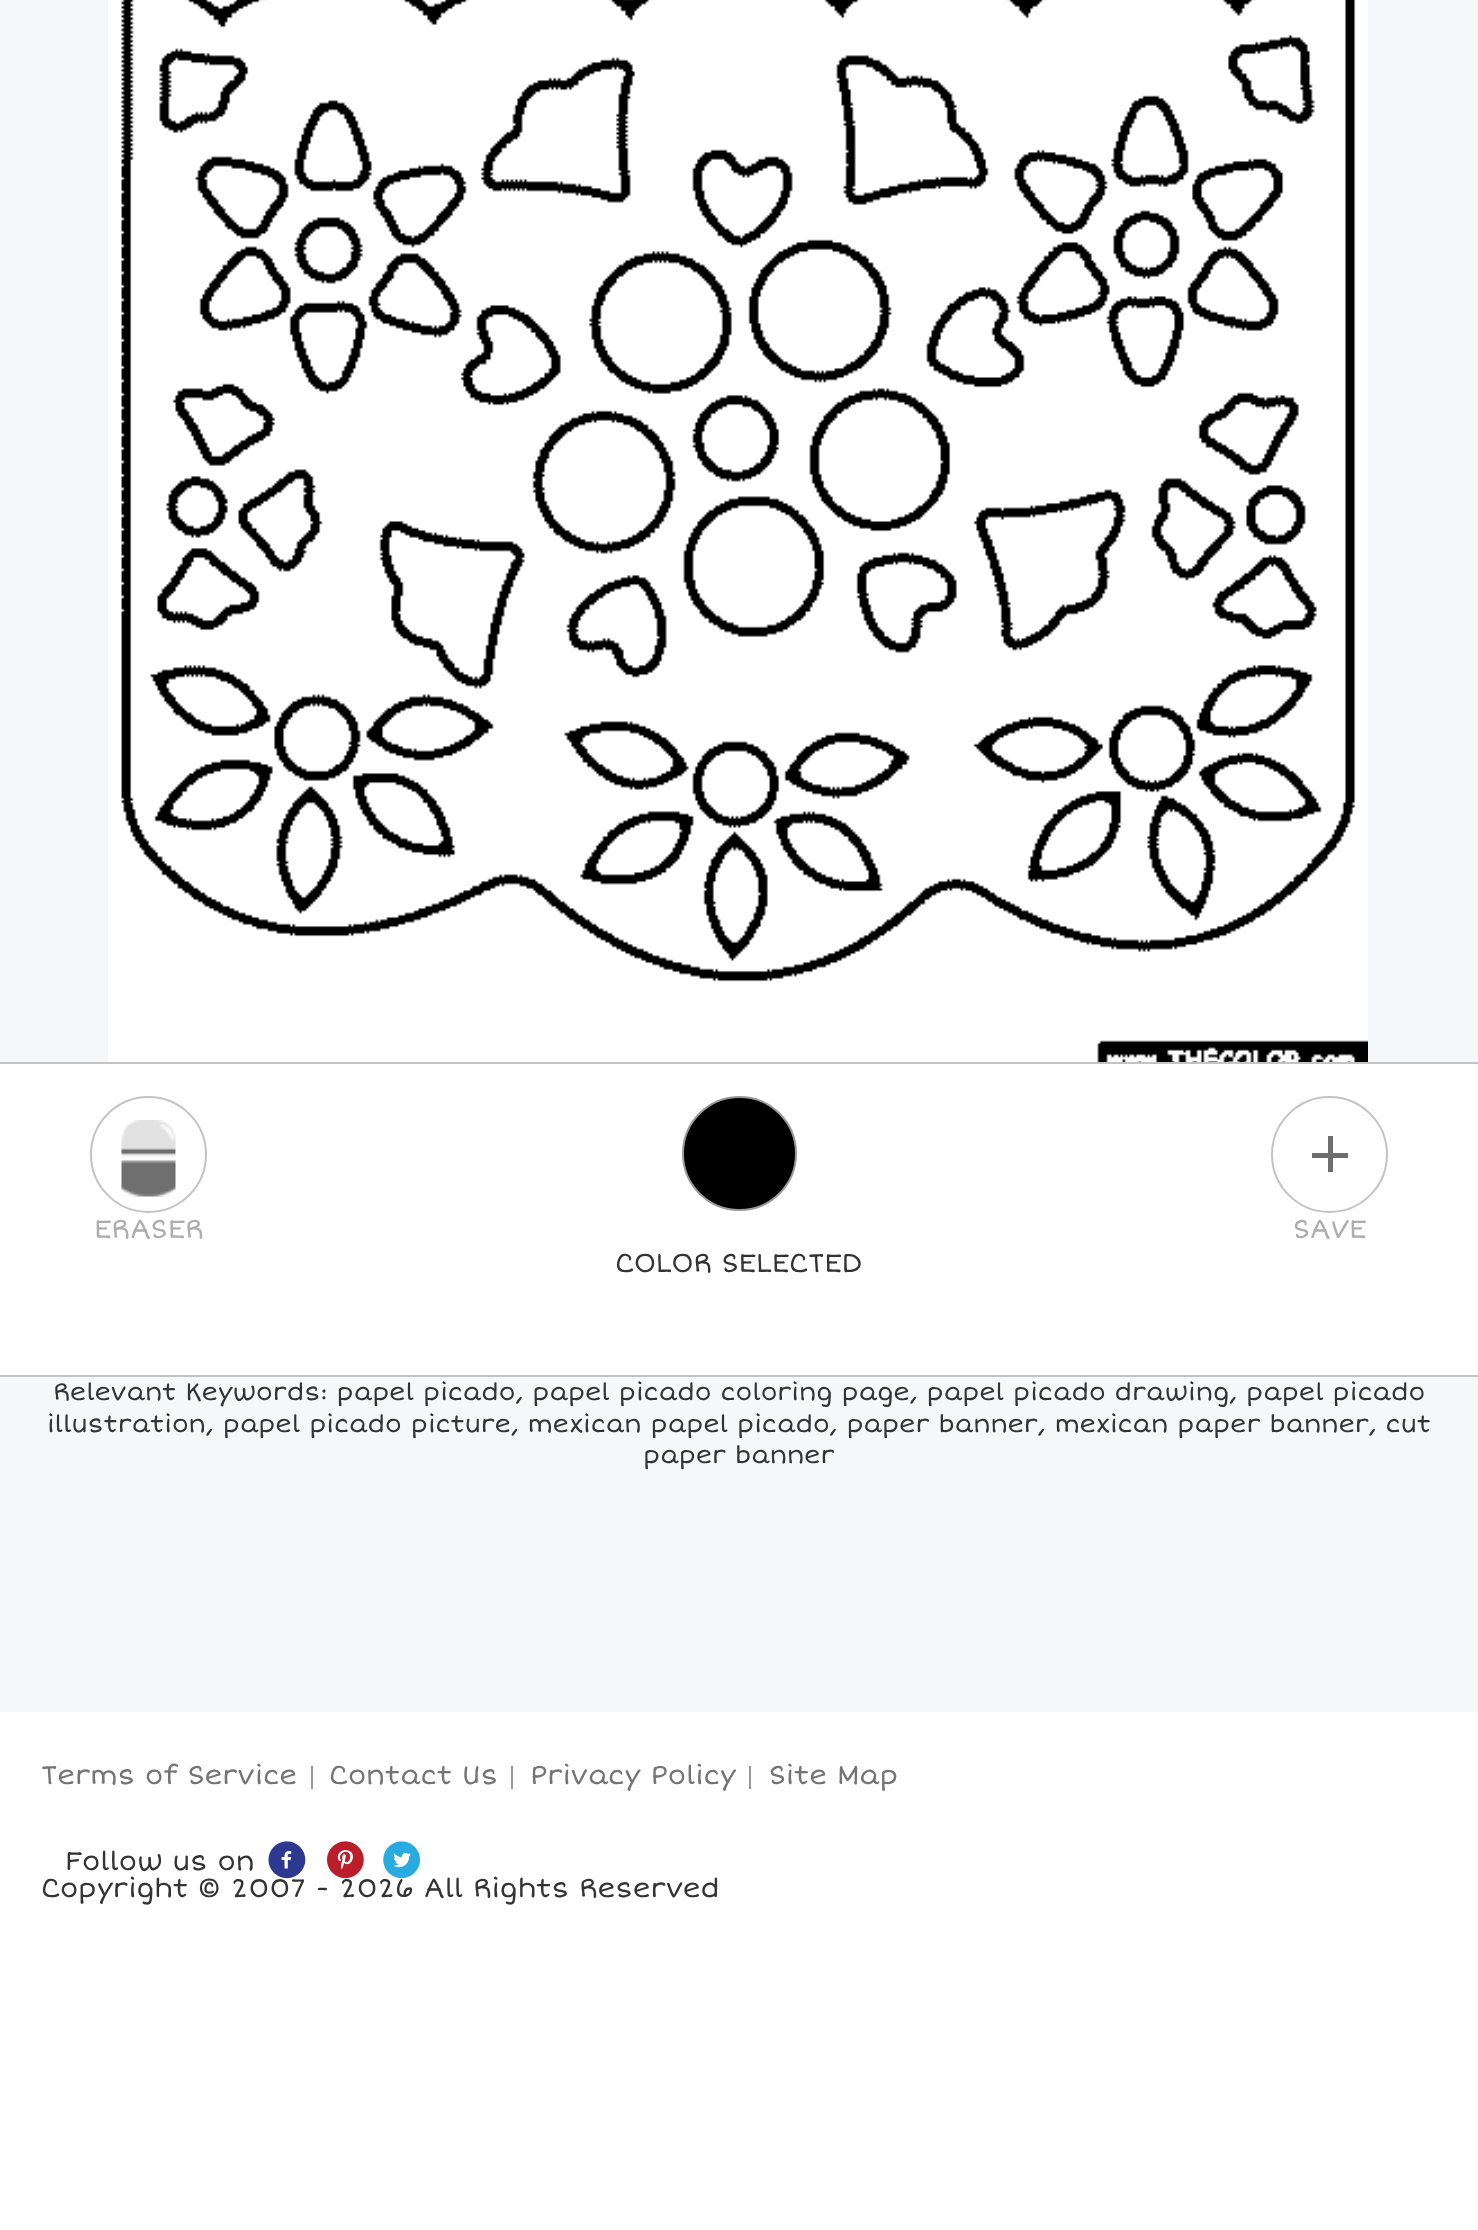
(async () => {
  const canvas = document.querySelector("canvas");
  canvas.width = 1478;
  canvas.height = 2230;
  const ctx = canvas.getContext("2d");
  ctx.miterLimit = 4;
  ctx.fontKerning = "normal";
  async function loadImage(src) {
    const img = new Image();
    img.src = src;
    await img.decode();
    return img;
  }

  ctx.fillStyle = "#ffffff";
  ctx.fillRect(0, 0, 1478, 2230);
  ctx.fillStyle = "#f6f7f9";
  ctx.fillRect(0, 0, 1478, 1712);
  ctx.drawImage(await loadImage("img/1.png"), 108, 0, 1260, 1062);
  ctx.fillStyle = "#ffffff";
  ctx.beginPath();
  ctx.rect(-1, 1063, 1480, 313);
  ctx.fill();
  ctx.strokeStyle = "#c3c3c3";
  ctx.lineWidth = 2;
  ctx.stroke();
  ctx.fillStyle = "#000000";
  ctx.beginPath();
  ctx.arc(739.5, 1153.5, 56.5, 0, Math.PI * 2);
  ctx.fill();
  ctx.strokeStyle = "#999999";
  ctx.stroke();
  ctx.beginPath();
  ctx.arc(148.5, 1154.5, 57.5, 0, Math.PI * 2);
  ctx.strokeStyle = "#c3c3c3";
  ctx.stroke();
  ctx.drawImage(await loadImage("img/2.png"), 121, 1120, 55, 77);
  ctx.beginPath();
  ctx.arc(1329.5, 1154.5, 57.5, 0, Math.PI * 2);
  ctx.stroke();
  for (const [x, y, w, h, color] of [
    [1328, 1136, 5, 36, "#6e6e6e"],
    [1312, 1153, 36, 5, "#6e6e6e"],
    [311, 1766, 2, 23, "#979797"],
    [511, 1766, 2, 23, "#979797"],
    [749, 1766, 2, 23, "#979797"],
  ]) {
    ctx.fillStyle = color;
    ctx.fillRect(x, y, w, h);
  }
  ctx.drawImage(await loadImage("img/3.png"), 268, 1841, 38, 38);
  ctx.drawImage(await loadImage("img/4.png"), 327, 1841, 37, 38);
  ctx.drawImage(await loadImage("img/5.png"), 383, 1841, 37, 38);
  ctx.font = "27px Short Stack";
  ctx.fillStyle = "#adadad";
  ctx.fillText("ERASER", 94, 1238);
  ctx.fillText("SAVE", 1293, 1238);
  ctx.fillStyle = "#333333";
  ctx.fillText("COLOR SELECTED", 615, 1272);
  ctx.font = "24.75px Short Stack";
  for (const [text, x, y] of [
    ["Relevant Keywords: papel picado, papel picado coloring page, papel picado drawing, papel picado", 53, 1400],
    ["illustration, papel picado picture, mexican papel picado, paper banner, mexican paper banner, cut", 47, 1432],
    ["paper banner", 643, 1463],
  ]) {
    ctx.fillText(text, x, y);
  }
  ctx.font = "27px Short Stack";
  ctx.fillStyle = "#747474";
  for (const [text, x, y] of [
    ["Terms of Service", 41, 1784],
    ["Contact Us", 329, 1784],
    ["Privacy Policy", 530, 1784],
    ["Site Map", 769, 1784],
  ]) {
    ctx.fillText(text, x, y);
  }
  ctx.fillStyle = "#333333";
  ctx.fillText("Copyright © 2007 - 2026 All Rights Reserved", 41, 1897);
  ctx.fillText("Follow us on", 65, 1870);
})();
